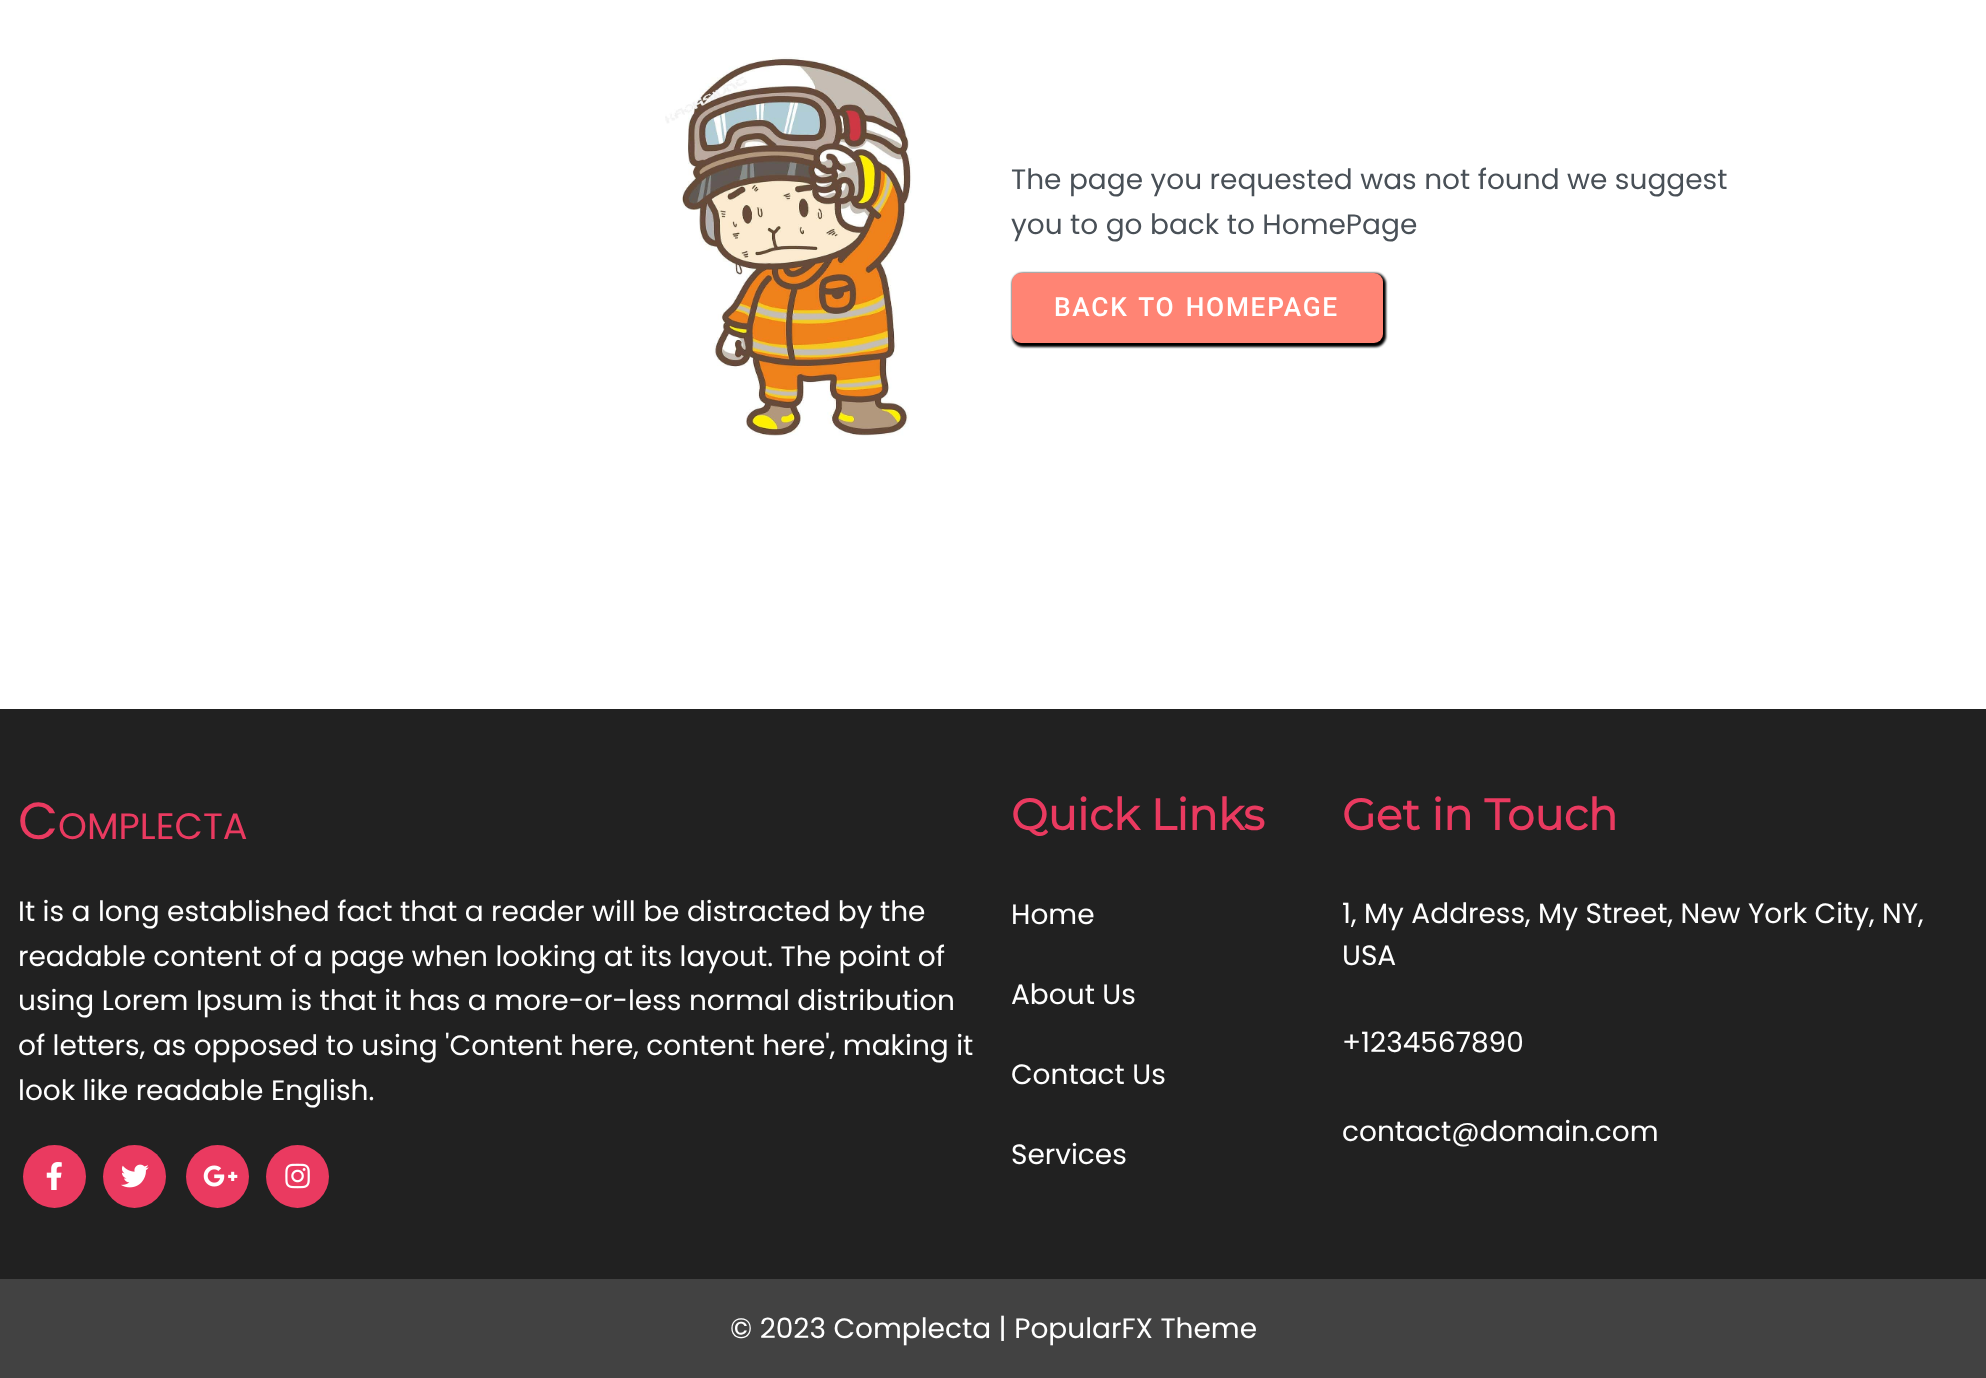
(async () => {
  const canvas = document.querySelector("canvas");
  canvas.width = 1986;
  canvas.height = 1378;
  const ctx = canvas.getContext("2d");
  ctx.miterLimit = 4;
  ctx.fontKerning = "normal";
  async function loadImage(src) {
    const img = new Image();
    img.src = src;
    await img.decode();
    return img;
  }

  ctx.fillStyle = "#ffffff";
  ctx.fillRect(0, 0, 1986, 1378);
  ctx.drawImage(await loadImage("img/1.png"), 665, 57, 247, 379);
  ctx.fillStyle = "#000000";
  ctx.filter = "blur(1px)";
  ctx.beginPath();
  ctx.roundRect(1012, 273, 374, 74, 11);
  ctx.fill();
  ctx.filter = "none";
  ctx.fillStyle = "#ff8474";
  ctx.beginPath();
  ctx.roundRect(1012, 273, 371, 70, 9);
  ctx.fill();
  ctx.fillStyle = "#212121";
  ctx.fillRect(0, 709, 1986, 570);
  ctx.fillStyle = "#ea3a60";
  ctx.beginPath();
  ctx.arc(54.5, 1176.5, 31.5, 0, Math.PI * 2);
  ctx.fill();
  ctx.drawImage(await loadImage("img/2.png"), 46, 1162, 16, 28);
  ctx.beginPath();
  ctx.arc(134.5, 1176.5, 31.5, 0, Math.PI * 2);
  ctx.fill();
  ctx.drawImage(await loadImage("img/3.png"), 121, 1164, 28, 24);
  ctx.beginPath();
  ctx.arc(217.5, 1176.5, 31.5, 0, Math.PI * 2);
  ctx.fill();
  ctx.drawImage(await loadImage("img/4.png"), 203, 1165, 35, 22);
  ctx.beginPath();
  ctx.arc(297.5, 1176.5, 31.5, 0, Math.PI * 2);
  ctx.fill();
  ctx.drawImage(await loadImage("img/5.png"), 285, 1163, 25, 26);
  ctx.fillStyle = "#424242";
  ctx.fillRect(0, 1279, 1986, 99);
  ctx.font = "28px Poppins";
  ctx.fillStyle = "#495057";
  ctx.fillText("The page you requested was not found we suggest", 1011, 189);
  ctx.fillText("you to go back to HomePage", 1011, 234);
  ctx.letterSpacing = "1.75px";
  ctx.wordSpacing = "2px";
  ctx.font = "500 26.25px Roboto";
  ctx.fillStyle = "#ffffff";
  ctx.fillText("BACK TO HOMEPAGE", 1054, 316);
  ctx.letterSpacing = "0px";
  ctx.wordSpacing = "0px";
  ctx.font = "52px Poppins";
  ctx.fillStyle = "#ea3a60";
  ctx.fillText("C", 18, 839);
  ctx.font = "36.75px Poppins";
  ctx.fillText("OMPLECTA", 58, 839);
  ctx.font = "28px Poppins";
  ctx.fillStyle = "#ffffff";
  for (const [text, x, y] of [
    ["It is a long established fact that a reader will be distracted by the", 18, 921],
    ["readable content of a page when looking at its layout. The point of", 18, 966],
    ["using Lorem Ipsum is that it has a more-or-less normal distribution", 18, 1010],
    ["of letters, as opposed to using 'Content here, content here', making it", 18, 1055],
    ["look like readable English.", 18, 1100],
  ]) {
    ctx.fillText(text, x, y);
  }
  ctx.font = "bold 43.75px Montserrat";
  ctx.fillStyle = "#ea3a60";
  ctx.fillText("Quick Links", 1011, 830);
  ctx.font = "28px Poppins";
  ctx.fillStyle = "#ffffff";
  for (const [text, x, y] of [
    ["Home", 1011, 924],
    ["About Us", 1011, 1004],
    ["Contact Us", 1011, 1084],
    ["Services", 1011, 1164],
  ]) {
    ctx.fillText(text, x, y);
  }
  ctx.font = "bold 43.75px Montserrat";
  ctx.fillStyle = "#ea3a60";
  ctx.fillText("Get in Touch", 1342, 830);
  ctx.font = "28px Poppins";
  ctx.fillStyle = "#ffffff";
  for (const [text, x, y] of [
    ["1, My Address, My Street, New York City, NY,", 1342, 923],
    ["USA", 1342, 965],
    ["+1234567890", 1342, 1052],
    ["contact@domain.com", 1342, 1141],
    ["© 2023 Complecta | PopularFX Theme", 730, 1338],
  ]) {
    ctx.fillText(text, x, y);
  }
})();
